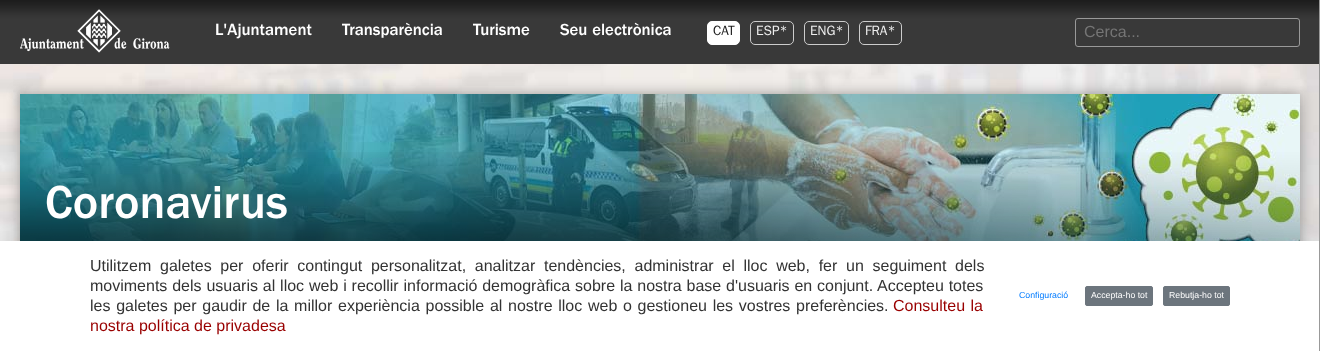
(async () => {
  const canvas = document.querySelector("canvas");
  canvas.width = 1320;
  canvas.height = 351;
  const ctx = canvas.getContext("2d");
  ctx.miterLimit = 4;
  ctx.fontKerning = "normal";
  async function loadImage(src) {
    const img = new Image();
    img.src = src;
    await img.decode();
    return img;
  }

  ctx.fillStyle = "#ffffff";
  ctx.fillRect(0, 0, 1320, 351);
  ctx.drawImage(await loadImage("img/1.png"), 0, 64, 1319, 177);
  ctx.drawImage(await loadImage("img/2.png"), 0, 0, 1319, 64);
  ctx.drawImage(await loadImage("img/3.png"), 20, 9, 150, 44);
  ctx.beginPath();
  ctx.roundRect(707.5, 21.5, 32, 23, 4.5);
  ctx.fill();
  ctx.strokeStyle = "#ffffff";
  ctx.stroke();
  ctx.beginPath();
  ctx.roundRect(750.5, 21.5, 43, 23, 4.5);
  ctx.strokeStyle = "#cccccc";
  ctx.stroke();
  ctx.beginPath();
  ctx.roundRect(804.5, 21.5, 44, 23, 4.5);
  ctx.stroke();
  ctx.beginPath();
  ctx.roundRect(859.5, 21.5, 42, 23, 4.5);
  ctx.stroke();
  ctx.beginPath();
  ctx.roundRect(1075.5, 18.5, 224, 28, 2.5);
  ctx.strokeStyle = "#999999";
  ctx.stroke();
  ctx.fillStyle = "rgba(0, 0, 0, 0.3)";
  ctx.filter = "blur(7.5px)";
  ctx.beginPath();
  ctx.rect(20, 94, 1280, 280);
  ctx.fill();
  ctx.filter = "none";
  ctx.fillStyle = "rgba(143, 143, 143, 0.2)";
  ctx.filter = "blur(2px)";
  ctx.beginPath();
  ctx.rect(19, 93, 1282, 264);
  ctx.fill();
  ctx.filter = "none";
  ctx.drawImage(await loadImage("img/4.png"), 20, 94, 1280, 147);
  ctx.drawImage(await loadImage("img/5.png"), 20, 152, 1280, 89);
  ctx.fillStyle = "rgba(0, 0, 0, 0.18)";
  ctx.filter = "blur(24px)";
  ctx.beginPath();
  ctx.rect(0, 257, 1320, 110);
  ctx.fill();
  ctx.filter = "none";
  ctx.fillStyle = "#999999";
  ctx.fillRect(1319, 0, 1, 351);
  ctx.fillStyle = "#ffffff";
  ctx.fillRect(0, 241, 1319, 110);
  ctx.fillStyle = "#6c757d";
  ctx.beginPath();
  ctx.roundRect(1085.5, 286.5, 67, 19, 1.5);
  ctx.fill();
  ctx.strokeStyle = "#6c757d";
  ctx.stroke();
  ctx.beginPath();
  ctx.roundRect(1163.5, 286.5, 66, 19, 1.5);
  ctx.fill();
  ctx.stroke();
  ctx.font = "500 16.75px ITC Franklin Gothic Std";
  ctx.fillStyle = "#ffffff";
  for (const [text, x, y] of [
    ["L'Ajuntament", 215, 35],
    ["Transparència", 342, 35],
    ["Turisme", 473, 35],
    ["Seu electrònica", 560, 35],
  ]) {
    ctx.fillText(text, x, y);
  }
  ctx.font = "13.5px ITC Franklin Gothic Std";
  ctx.fillStyle = "#1a1a1a";
  ctx.fillText("CAT", 713, 35);
  ctx.fillStyle = "#eeeeee";
  for (const [text, x, y] of [
    ["ESP*", 756, 35],
    ["ENG*", 810, 35],
    ["FRA*", 865, 35],
  ]) {
    ctx.fillText(text, x, y);
  }
  ctx.font = "16px Liberation Sans";
  ctx.fillStyle = "#757575";
  ctx.fillText("Cerca...", 1084, 37);
  ctx.font = "500 48px ITC Franklin Gothic Std";
  ctx.fillStyle = "#ffffff";
  ctx.fillText("Coronavirus", 45, 218);
  ctx.wordSpacing = "4.25px";
  ctx.font = "16px Liberation Sans";
  ctx.fillStyle = "#333333";
  ctx.fillText("Utilitzem galetes per oferir contingut personalitzat, analitzar tendències, administrar el lloc web, fer un seguiment dels", 90, 271);
  ctx.wordSpacing = "0.4px";
  ctx.fillText("moviments dels usuaris al lloc web i recollir informació demogràfica sobre la nostra base d'usuaris en conjunt. Accepteu totes", 90, 291);
  ctx.wordSpacing = "1.25px";
  ctx.fillText("les galetes per gaudir de la millor experiència possible al nostre lloc web o gestioneu les vostres preferències.", 90, 311);
  ctx.wordSpacing = "1px";
  ctx.fillStyle = "#990000";
  ctx.fillText("Consulteu la", 893, 311);
  ctx.wordSpacing = "0px";
  ctx.fillText("nostra política de privadesa", 90, 331);
  ctx.font = "8.75px Liberation Sans";
  ctx.fillStyle = "#007bff";
  ctx.fillText("Configuració", 1019, 298);
  ctx.fillStyle = "#ffffff";
  ctx.fillText("Accepta-ho tot", 1091, 298);
  ctx.fillText("Rebutja-ho tot", 1169, 298);
})();
